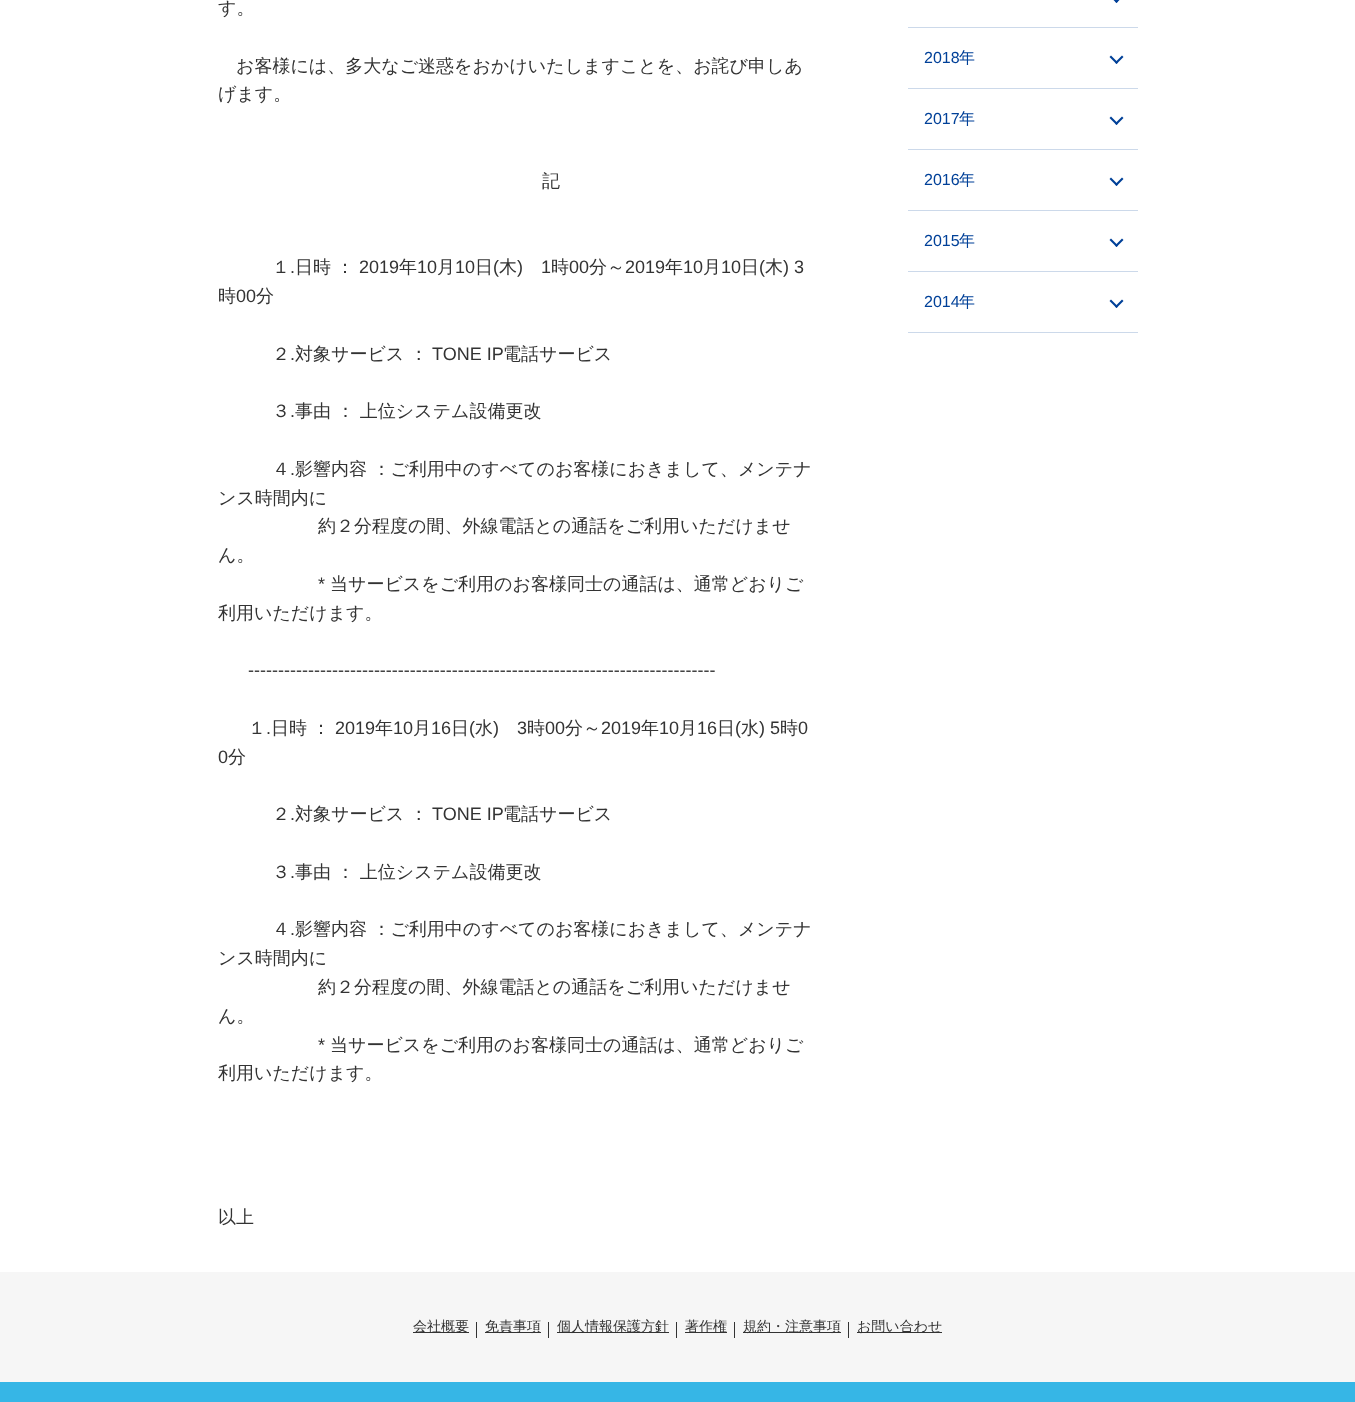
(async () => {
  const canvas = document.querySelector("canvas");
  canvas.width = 1355;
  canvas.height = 1402;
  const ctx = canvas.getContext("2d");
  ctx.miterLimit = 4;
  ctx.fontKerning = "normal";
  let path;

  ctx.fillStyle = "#ffffff";
  ctx.fillRect(0, 0, 1355, 1402);
  ctx.fillStyle = "#004098";
  path = new Path2D("M1115 1.5L1122-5.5L1123.5-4L1116.5 3Z");
  ctx.fill(path);
  path = new Path2D("M1109.5-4L1111-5.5L1118 1.5L1116.5 3Z");
  ctx.fill(path);
  ctx.fillStyle = "#ccd9ea";
  ctx.fillRect(908, 27, 230, 1);
  ctx.fillStyle = "#004098";
  path = new Path2D("M1115 62.5L1122 55.5L1123.5 57L1116.5 64Z");
  ctx.fill(path);
  path = new Path2D("M1109.5 57L1111 55.5L1118 62.5L1116.5 64Z");
  ctx.fill(path);
  ctx.fillStyle = "#ccd9ea";
  ctx.fillRect(908, 88, 230, 1);
  ctx.fillStyle = "#004098";
  path = new Path2D("M1115 123.5L1122 116.5L1123.5 118L1116.5 125Z");
  ctx.fill(path);
  path = new Path2D("M1109.5 118L1111 116.5L1118 123.5L1116.5 125Z");
  ctx.fill(path);
  ctx.fillStyle = "#ccd9ea";
  ctx.fillRect(908, 149, 230, 1);
  ctx.fillStyle = "#004098";
  path = new Path2D("M1115 184.5L1122 177.5L1123.5 179L1116.5 186Z");
  ctx.fill(path);
  path = new Path2D("M1109.5 179L1111 177.5L1118 184.5L1116.5 186Z");
  ctx.fill(path);
  ctx.fillStyle = "#ccd9ea";
  ctx.fillRect(908, 210, 230, 1);
  ctx.fillStyle = "#004098";
  path = new Path2D("M1115 245.5L1122 238.5L1123.5 240L1116.5 247Z");
  ctx.fill(path);
  path = new Path2D("M1109.5 240L1111 238.5L1118 245.5L1116.5 247Z");
  ctx.fill(path);
  ctx.fillStyle = "#ccd9ea";
  ctx.fillRect(908, 271, 230, 1);
  ctx.fillRect(908, 332, 230, 1);
  ctx.fillStyle = "#004098";
  path = new Path2D("M1115 306.5L1122 299.5L1123.5 301L1116.5 308Z");
  ctx.fill(path);
  path = new Path2D("M1109.5 301L1111 299.5L1118 306.5L1116.5 308Z");
  ctx.fill(path);
  for (const [x, y, w, h, color] of [
    [0, 1272, 1355, 110, "#f6f6f6"],
    [413, 1332, 56, 1, "#333333"],
    [476, 1322, 1, 16, "#333333"],
    [485, 1332, 56, 1, "#333333"],
    [548, 1322, 1, 16, "#333333"],
    [557, 1332, 112, 1, "#333333"],
    [676, 1322, 1, 16, "#333333"],
    [685, 1332, 42, 1, "#333333"],
    [734, 1322, 1, 16, "#333333"],
    [743, 1332, 98, 1, "#333333"],
    [848, 1322, 1, 16, "#333333"],
    [857, 1332, 85, 1, "#333333"],
    [0, 1382, 1355, 20, "#36b6e6"],
  ]) {
    ctx.fillStyle = color;
    ctx.fillRect(x, y, w, h);
  }
  ctx.font = "500 18px WenQuanYi Zen Hei";
  ctx.fillStyle = "#333333";
  for (const [text, x, y] of [
    ["す。", 218, 14],
    ["お客様には、多大なご迷惑をおかけいたしますことを、お詫び申しあ", 236, 72],
    ["げます。", 218, 100],
    ["記", 542, 187],
    ["１", 272, 273],
  ]) {
    ctx.fillText(text, x, y);
  }
  ctx.font = "18px Liberation Sans";
  ctx.fillText(".", 290, 273);
  ctx.font = "500 18px WenQuanYi Zen Hei";
  ctx.fillText("日時", 295, 273);
  ctx.fillText("：", 336, 273);
  ctx.font = "18px Liberation Sans";
  ctx.fillText("2019", 359, 273);
  ctx.font = "500 18px WenQuanYi Zen Hei";
  ctx.fillText("年", 399, 273);
  ctx.font = "18px Liberation Sans";
  ctx.fillText("10", 417, 273);
  ctx.font = "500 18px WenQuanYi Zen Hei";
  ctx.fillText("月", 437, 273);
  ctx.font = "18px Liberation Sans";
  ctx.fillText("10", 455, 273);
  ctx.font = "500 18px WenQuanYi Zen Hei";
  ctx.fillText("日", 475, 273);
  ctx.font = "18px Liberation Sans";
  ctx.fillText("(", 493, 273);
  ctx.font = "500 18px WenQuanYi Zen Hei";
  ctx.fillText("木", 499, 273);
  ctx.font = "18px Liberation Sans";
  ctx.fillText(")", 517, 273);
  ctx.fillText("1", 541, 273);
  ctx.font = "500 18px WenQuanYi Zen Hei";
  ctx.fillText("時", 551, 273);
  ctx.font = "18px Liberation Sans";
  ctx.fillText("00", 569, 273);
  ctx.font = "500 18px WenQuanYi Zen Hei";
  ctx.fillText("分～", 589, 273);
  ctx.font = "18px Liberation Sans";
  ctx.fillText("2019", 625, 273);
  ctx.font = "500 18px WenQuanYi Zen Hei";
  ctx.fillText("年", 665, 273);
  ctx.font = "18px Liberation Sans";
  ctx.fillText("10", 683, 273);
  ctx.font = "500 18px WenQuanYi Zen Hei";
  ctx.fillText("月", 703, 273);
  ctx.font = "18px Liberation Sans";
  ctx.fillText("10", 721, 273);
  ctx.font = "500 18px WenQuanYi Zen Hei";
  ctx.fillText("日", 741, 273);
  ctx.font = "18px Liberation Sans";
  ctx.fillText("(", 759, 273);
  ctx.font = "500 18px WenQuanYi Zen Hei";
  ctx.fillText("木", 765, 273);
  ctx.font = "18px Liberation Sans";
  ctx.fillText(") 3", 783, 273);
  ctx.font = "500 18px WenQuanYi Zen Hei";
  ctx.fillText("時", 218, 302);
  ctx.font = "18px Liberation Sans";
  ctx.fillText("00", 236, 302);
  ctx.font = "500 18px WenQuanYi Zen Hei";
  ctx.fillText("分", 256, 302);
  ctx.fillText("２", 272, 360);
  ctx.font = "18px Liberation Sans";
  ctx.fillText(".", 290, 360);
  ctx.font = "500 18px WenQuanYi Zen Hei";
  ctx.fillText("対象サービス ：", 295, 360);
  ctx.font = "18px Liberation Sans";
  ctx.fillText("TONE IP", 432, 360);
  ctx.font = "500 18px WenQuanYi Zen Hei";
  ctx.fillText("電話サービス", 503, 360);
  ctx.fillText("３", 272, 417);
  ctx.font = "18px Liberation Sans";
  ctx.fillText(".", 290, 417);
  ctx.font = "500 18px WenQuanYi Zen Hei";
  ctx.fillText("事由 ： 上位システム設備更改", 295, 417);
  ctx.fillText("４", 272, 475);
  ctx.font = "18px Liberation Sans";
  ctx.fillText(".", 290, 475);
  ctx.font = "500 18px WenQuanYi Zen Hei";
  for (const [text, x, y] of [
    ["影響内容 ：ご利用中のすべてのお客様におきまして、メンテナ", 295, 475],
    ["ンス時間内に", 218, 504],
    ["約２分程度の間、外線電話との通話をご利用いただけませ", 318, 532],
    ["ん。", 218, 561],
  ]) {
    ctx.fillText(text, x, y);
  }
  ctx.font = "18px Liberation Sans";
  ctx.fillText("*", 318, 590);
  ctx.font = "500 18px WenQuanYi Zen Hei";
  ctx.fillText("当サービスをご利用のお客様同士の通話は、通常どおりご", 330, 590);
  ctx.fillText("利用いただけます。", 218, 619);
  ctx.font = "18px Liberation Sans";
  ctx.fillText("------------------------------------------------------------------------------", 248, 676);
  ctx.font = "500 18px WenQuanYi Zen Hei";
  ctx.fillText("１", 248, 734);
  ctx.font = "18px Liberation Sans";
  ctx.fillText(".", 266, 734);
  ctx.font = "500 18px WenQuanYi Zen Hei";
  ctx.fillText("日時", 271, 734);
  ctx.fillText("：", 312, 734);
  ctx.font = "18px Liberation Sans";
  ctx.fillText("2019", 335, 734);
  ctx.font = "500 18px WenQuanYi Zen Hei";
  ctx.fillText("年", 375, 734);
  ctx.font = "18px Liberation Sans";
  ctx.fillText("10", 393, 734);
  ctx.font = "500 18px WenQuanYi Zen Hei";
  ctx.fillText("月", 413, 734);
  ctx.font = "18px Liberation Sans";
  ctx.fillText("16", 431, 734);
  ctx.font = "500 18px WenQuanYi Zen Hei";
  ctx.fillText("日", 451, 734);
  ctx.font = "18px Liberation Sans";
  ctx.fillText("(", 469, 734);
  ctx.font = "500 18px WenQuanYi Zen Hei";
  ctx.fillText("水", 475, 734);
  ctx.font = "18px Liberation Sans";
  ctx.fillText(")", 493, 734);
  ctx.fillText("3", 517, 734);
  ctx.font = "500 18px WenQuanYi Zen Hei";
  ctx.fillText("時", 527, 734);
  ctx.font = "18px Liberation Sans";
  ctx.fillText("00", 545, 734);
  ctx.font = "500 18px WenQuanYi Zen Hei";
  ctx.fillText("分～", 565, 734);
  ctx.font = "18px Liberation Sans";
  ctx.fillText("2019", 601, 734);
  ctx.font = "500 18px WenQuanYi Zen Hei";
  ctx.fillText("年", 641, 734);
  ctx.font = "18px Liberation Sans";
  ctx.fillText("10", 659, 734);
  ctx.font = "500 18px WenQuanYi Zen Hei";
  ctx.fillText("月", 679, 734);
  ctx.font = "18px Liberation Sans";
  ctx.fillText("16", 697, 734);
  ctx.font = "500 18px WenQuanYi Zen Hei";
  ctx.fillText("日", 717, 734);
  ctx.font = "18px Liberation Sans";
  ctx.fillText("(", 735, 734);
  ctx.font = "500 18px WenQuanYi Zen Hei";
  ctx.fillText("水", 741, 734);
  ctx.font = "18px Liberation Sans";
  ctx.fillText(") 5", 759, 734);
  ctx.font = "500 18px WenQuanYi Zen Hei";
  ctx.fillText("時", 780, 734);
  ctx.font = "18px Liberation Sans";
  ctx.fillText("0", 798, 734);
  ctx.fillText("0", 218, 763);
  ctx.font = "500 18px WenQuanYi Zen Hei";
  ctx.fillText("分", 228, 763);
  ctx.fillText("２", 272, 820);
  ctx.font = "18px Liberation Sans";
  ctx.fillText(".", 290, 820);
  ctx.font = "500 18px WenQuanYi Zen Hei";
  ctx.fillText("対象サービス ：", 295, 820);
  ctx.font = "18px Liberation Sans";
  ctx.fillText("TONE IP", 432, 820);
  ctx.font = "500 18px WenQuanYi Zen Hei";
  ctx.fillText("電話サービス", 503, 820);
  ctx.fillText("３", 272, 878);
  ctx.font = "18px Liberation Sans";
  ctx.fillText(".", 290, 878);
  ctx.font = "500 18px WenQuanYi Zen Hei";
  ctx.fillText("事由 ： 上位システム設備更改", 295, 878);
  ctx.fillText("４", 272, 935);
  ctx.font = "18px Liberation Sans";
  ctx.fillText(".", 290, 935);
  ctx.font = "500 18px WenQuanYi Zen Hei";
  for (const [text, x, y] of [
    ["影響内容 ：ご利用中のすべてのお客様におきまして、メンテナ", 295, 935],
    ["ンス時間内に", 218, 964],
    ["約２分程度の間、外線電話との通話をご利用いただけませ", 318, 993],
    ["ん。", 218, 1022],
  ]) {
    ctx.fillText(text, x, y);
  }
  ctx.font = "18px Liberation Sans";
  ctx.fillText("*", 318, 1051);
  ctx.font = "500 18px WenQuanYi Zen Hei";
  for (const [text, x, y] of [
    ["当サービスをご利用のお客様同士の通話は、通常どおりご", 330, 1051],
    ["利用いただけます。", 218, 1079],
    ["以上", 218, 1223],
  ]) {
    ctx.fillText(text, x, y);
  }
  ctx.font = "16px Liberation Sans";
  ctx.fillStyle = "#004098";
  ctx.fillText("2018", 924, 63);
  ctx.font = "500 16px WenQuanYi Zen Hei";
  ctx.fillText("年", 959, 63);
  ctx.font = "16px Liberation Sans";
  ctx.fillText("2017", 924, 124);
  ctx.font = "500 16px WenQuanYi Zen Hei";
  ctx.fillText("年", 959, 124);
  ctx.font = "16px Liberation Sans";
  ctx.fillText("2016", 924, 185);
  ctx.font = "500 16px WenQuanYi Zen Hei";
  ctx.fillText("年", 959, 185);
  ctx.font = "16px Liberation Sans";
  ctx.fillText("2015", 924, 246);
  ctx.font = "500 16px WenQuanYi Zen Hei";
  ctx.fillText("年", 959, 246);
  ctx.font = "16px Liberation Sans";
  ctx.fillText("2014", 924, 307);
  ctx.font = "500 16px WenQuanYi Zen Hei";
  ctx.fillText("年", 959, 307);
  ctx.font = "500 14px WenQuanYi Zen Hei";
  ctx.fillStyle = "#333333";
  for (const [text, x, y] of [
    ["会社概要", 413, 1331],
    ["免責事項", 485, 1331],
    ["個人情報保護方針", 557, 1331],
    ["著作権", 685, 1331],
    ["規約・注意事項", 743, 1331],
    ["お問い合わせ", 857, 1331],
  ]) {
    ctx.fillText(text, x, y);
  }
})();
